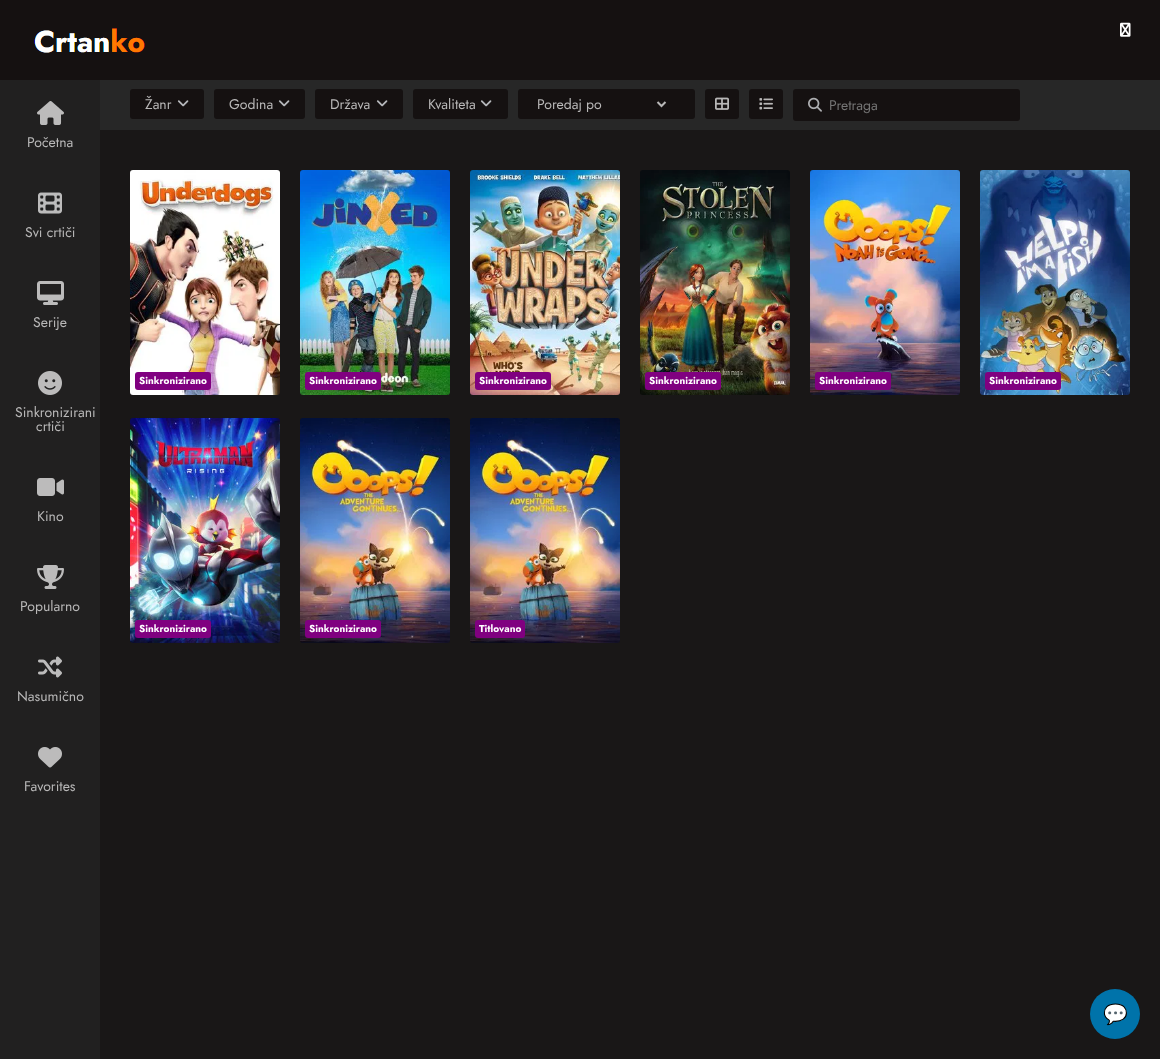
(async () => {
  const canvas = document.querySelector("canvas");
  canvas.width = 1160;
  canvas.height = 1059;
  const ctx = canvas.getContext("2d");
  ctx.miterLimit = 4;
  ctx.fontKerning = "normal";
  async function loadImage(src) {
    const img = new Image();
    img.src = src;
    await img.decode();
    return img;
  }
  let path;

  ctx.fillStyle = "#191717";
  ctx.fillRect(0, 0, 1160, 1059);
  ctx.fillStyle = "#212020";
  ctx.fillRect(0, 80, 100, 979);
  ctx.drawImage(await loadImage("img/1.png"), 37, 101, 27, 24);
  ctx.drawImage(await loadImage("img/2.png"), 38, 192, 24, 22);
  ctx.drawImage(await loadImage("img/3.png"), 37, 281, 27, 24);
  ctx.drawImage(await loadImage("img/4.png"), 38, 371, 24, 24);
  ctx.drawImage(await loadImage("img/5.png"), 37, 478, 27, 18);
  ctx.drawImage(await loadImage("img/6.png"), 37, 565, 27, 24);
  ctx.drawImage(await loadImage("img/7.png"), 38, 656, 24, 22);
  ctx.drawImage(await loadImage("img/8.png"), 38, 747, 24, 21);
  ctx.fillStyle = "#151111";
  ctx.fillRect(0, 0, 1160, 80);
  ctx.drawImage(await loadImage("img/9.png"), 34, 28, 111, 25);
  ctx.drawImage(await loadImage("img/10.png"), 1120, 22, 11, 15);
  ctx.fillStyle = "#272727";
  ctx.fillRect(100, 80, 1060, 50);
  ctx.fillStyle = "#151111";
  ctx.beginPath();
  ctx.roundRect(130, 89, 74, 30, 3);
  ctx.fill();
  ctx.drawImage(await loadImage("img/11.png"), 177, 100, 12, 7);
  ctx.beginPath();
  ctx.roundRect(214, 89, 91, 30, 3);
  ctx.fill();
  ctx.drawImage(await loadImage("img/11.png"), 278, 100, 12, 7);
  ctx.beginPath();
  ctx.roundRect(315, 89, 88, 30, 3);
  ctx.fill();
  ctx.drawImage(await loadImage("img/11.png"), 376, 100, 12, 7);
  ctx.beginPath();
  ctx.roundRect(413, 89, 95, 30, 3);
  ctx.fill();
  ctx.drawImage(await loadImage("img/11.png"), 480, 100, 12, 7);
  ctx.beginPath();
  ctx.roundRect(518, 89, 177, 30, 3);
  ctx.fill();
  path = new Path2D("M657.5 102L661.5 106L665.5 102");
  ctx.strokeStyle = "#b9b8b8";
  ctx.lineWidth = 2;
  ctx.stroke(path);
  ctx.beginPath();
  ctx.roundRect(705, 89, 34, 30, 3);
  ctx.fill();
  ctx.drawImage(await loadImage("img/12.png"), 715, 97, 14, 13);
  ctx.beginPath();
  ctx.roundRect(749, 89, 34, 30, 3);
  ctx.fill();
  ctx.drawImage(await loadImage("img/13.png"), 759, 98, 14, 12);
  ctx.beginPath();
  ctx.roundRect(793, 89, 227, 32, 3);
  ctx.fill();
  ctx.drawImage(await loadImage("img/14.png"), 808, 97, 14, 15);
  ctx.drawImage(await loadImage("img/15.png"), 130, 170, 150, 225);
  ctx.fillStyle = "#800080";
  ctx.beginPath();
  ctx.roundRect(135, 372, 76, 18, 3);
  ctx.fill();
  ctx.drawImage(await loadImage("img/16.png"), 300, 170, 150, 225);
  ctx.beginPath();
  ctx.roundRect(305, 372, 76, 18, 3);
  ctx.fill();
  ctx.drawImage(await loadImage("img/17.png"), 470, 170, 150, 225);
  ctx.beginPath();
  ctx.roundRect(475, 372, 76, 18, 3);
  ctx.fill();
  ctx.drawImage(await loadImage("img/18.png"), 640, 170, 150, 225);
  ctx.beginPath();
  ctx.roundRect(645, 372, 76, 18, 3);
  ctx.fill();
  ctx.drawImage(await loadImage("img/19.png"), 810, 170, 150, 225);
  ctx.beginPath();
  ctx.roundRect(815, 372, 76, 18, 3);
  ctx.fill();
  ctx.drawImage(await loadImage("img/20.png"), 980, 170, 150, 225);
  ctx.beginPath();
  ctx.roundRect(985, 372, 76, 18, 3);
  ctx.fill();
  ctx.drawImage(await loadImage("img/21.png"), 130, 418, 150, 225);
  ctx.beginPath();
  ctx.roundRect(135, 620, 76, 18, 3);
  ctx.fill();
  ctx.drawImage(await loadImage("img/22.png"), 300, 418, 150, 225);
  ctx.beginPath();
  ctx.roundRect(305, 620, 76, 18, 3);
  ctx.fill();
  ctx.drawImage(await loadImage("img/22.png"), 470, 418, 150, 225);
  ctx.beginPath();
  ctx.roundRect(475, 620, 50, 18, 3);
  ctx.fill();
  ctx.fillStyle = "#0073aa";
  ctx.beginPath();
  ctx.arc(1115, 1014, 25, 0, Math.PI * 2);
  ctx.fill();
  ctx.font = "14px Jost";
  ctx.fillStyle = "#b9b8b8";
  for (const [text, x, y] of [
    ["Početna", 27, 147],
    ["Svi crtiči", 25, 237],
    ["Serije", 33, 327],
    ["Sinkronizirani", 15, 417],
    ["crtiči", 36, 431],
    ["Kino", 37, 521],
    ["Popularno", 20, 611],
    ["Nasumično", 17, 701],
    ["Favorites", 24, 791],
    ["Žanr", 145, 109],
    ["Godina", 229, 109],
    ["Država", 330, 109],
    ["Kvaliteta", 428, 109],
    ["Poredaj po", 537, 109],
  ]) {
    ctx.fillText(text, x, y);
  }
  ctx.fillStyle = "#757575";
  ctx.fillText("Pretraga", 829, 110);
  ctx.font = "bold 10px Jost";
  ctx.fillStyle = "#ffffff";
  for (const [text, x, y] of [
    ["Sinkronizirano", 139, 384],
    ["Sinkronizirano", 309, 384],
    ["Sinkronizirano", 479, 384],
    ["Sinkronizirano", 649, 384],
    ["Sinkronizirano", 819, 384],
    ["Sinkronizirano", 989, 384],
    ["Sinkronizirano", 139, 632],
    ["Sinkronizirano", 309, 632],
    ["Titlovano", 479, 632],
  ]) {
    ctx.fillText(text, x, y);
  }
  ctx.font = "20px Noto Color Emoji";
  ctx.fillText("💬", 1103, 1021);
})();
